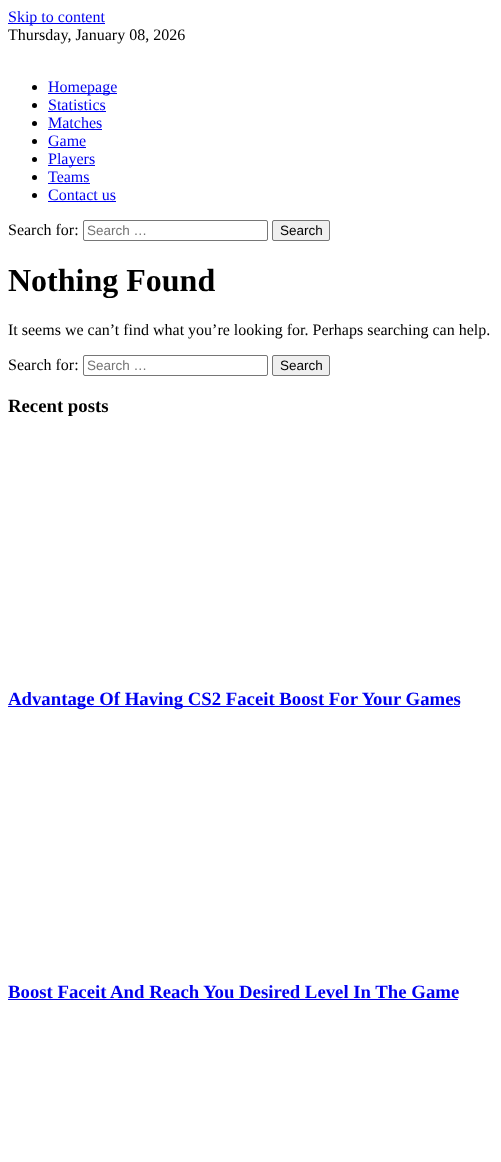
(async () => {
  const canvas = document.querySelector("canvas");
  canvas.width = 501;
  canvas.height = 1162;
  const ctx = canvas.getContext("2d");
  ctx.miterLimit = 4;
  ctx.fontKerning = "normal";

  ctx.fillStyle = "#ffffff";
  ctx.fillRect(0, 0, 501, 1162);
  ctx.fillStyle = "#0000ee";
  ctx.fillRect(8, 23, 97, 1);
  ctx.fillStyle = "#000000";
  ctx.beginPath();
  ctx.arc(34.5, 87.5, 2.5, 0, Math.PI * 2);
  ctx.fill();
  ctx.fillStyle = "#0000ee";
  ctx.fillRect(48, 93, 69, 1);
  ctx.fillStyle = "#000000";
  ctx.beginPath();
  ctx.arc(34.5, 105.5, 2.5, 0, Math.PI * 2);
  ctx.fill();
  ctx.fillStyle = "#0000ee";
  ctx.fillRect(48, 111, 58, 1);
  ctx.fillStyle = "#000000";
  ctx.beginPath();
  ctx.arc(34.5, 123.5, 2.5, 0, Math.PI * 2);
  ctx.fill();
  ctx.fillStyle = "#0000ee";
  ctx.fillRect(48, 129, 54, 1);
  ctx.fillStyle = "#000000";
  ctx.beginPath();
  ctx.arc(34.5, 141.5, 2.5, 0, Math.PI * 2);
  ctx.fill();
  ctx.fillStyle = "#0000ee";
  ctx.fillRect(48, 147, 38, 1);
  ctx.fillStyle = "#000000";
  ctx.beginPath();
  ctx.arc(34.5, 159.5, 2.5, 0, Math.PI * 2);
  ctx.fill();
  ctx.fillStyle = "#0000ee";
  ctx.fillRect(48, 165, 47, 1);
  ctx.fillStyle = "#000000";
  ctx.beginPath();
  ctx.arc(34.5, 177.5, 2.5, 0, Math.PI * 2);
  ctx.fill();
  ctx.fillStyle = "#0000ee";
  ctx.fillRect(48, 183, 42, 1);
  ctx.fillStyle = "#000000";
  ctx.beginPath();
  ctx.arc(34.5, 195.5, 2.5, 0, Math.PI * 2);
  ctx.fill();
  ctx.fillStyle = "#0000ee";
  ctx.fillRect(48, 201, 68, 1);
  ctx.beginPath();
  ctx.roundRect(83.5, 220.5, 184, 20, 1.5);
  ctx.strokeStyle = "#767676";
  ctx.stroke();
  ctx.fillStyle = "#efefef";
  ctx.beginPath();
  ctx.roundRect(272.5, 220.5, 57, 20, 1.5);
  ctx.fill();
  ctx.stroke();
  ctx.beginPath();
  ctx.roundRect(83.5, 355.5, 184, 20, 1.5);
  ctx.stroke();
  ctx.beginPath();
  ctx.roundRect(272.5, 355.5, 57, 20, 1.5);
  ctx.fill();
  ctx.stroke();
  ctx.fillStyle = "#0000ee";
  ctx.fillRect(8, 706, 452, 1);
  ctx.fillRect(8, 999, 450, 1);
  ctx.font = "16px Liberation Serif";
  ctx.fillText("Skip to content", 8, 22);
  ctx.fillStyle = "#000000";
  ctx.fillText("Thursday, January 08, 2026", 8, 40);
  ctx.fillStyle = "#0000ee";
  for (const [text, x, y] of [
    ["Homepage", 48, 92],
    ["Statistics", 48, 110],
    ["Matches", 48, 128],
    ["Game", 48, 146],
    ["Players", 48, 164],
    ["Teams", 48, 182],
    ["Contact us", 48, 200],
  ]) {
    ctx.fillText(text, x, y);
  }
  ctx.fillStyle = "#000000";
  ctx.fillText("Search for:", 8, 235);
  ctx.font = "13.5px Liberation Sans";
  ctx.fillStyle = "#757575";
  ctx.fillText("Search …", 87, 235);
  ctx.fillStyle = "#000000";
  ctx.fillText("Search", 280, 235);
  ctx.font = "bold 32px Liberation Serif";
  ctx.fillText("Nothing Found", 8, 291);
  ctx.font = "16px Liberation Serif";
  ctx.fillText("It seems we can’t find what you’re looking for. Perhaps searching can help.", 8, 335);
  ctx.fillText("Search for:", 8, 370);
  ctx.font = "13.5px Liberation Sans";
  ctx.fillStyle = "#757575";
  ctx.fillText("Search …", 87, 370);
  ctx.fillStyle = "#000000";
  ctx.fillText("Search", 280, 370);
  ctx.font = "bold 18.75px Liberation Serif";
  ctx.fillText("Recent posts", 8, 412);
  ctx.fillStyle = "#0000ee";
  ctx.fillText("Advantage Of Having CS2 Faceit Boost For Your Games", 8, 705);
  ctx.fillText("Boost Faceit And Reach You Desired Level In The Game", 8, 998);
})();
